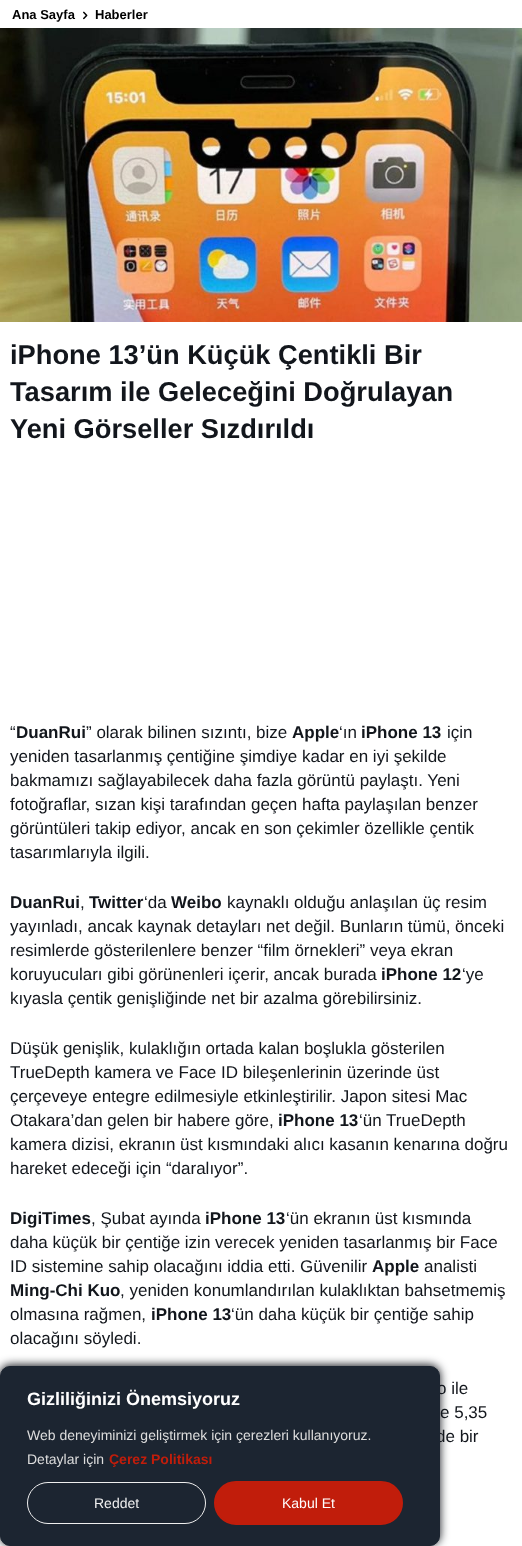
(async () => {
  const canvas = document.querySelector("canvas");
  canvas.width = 522;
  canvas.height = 1546;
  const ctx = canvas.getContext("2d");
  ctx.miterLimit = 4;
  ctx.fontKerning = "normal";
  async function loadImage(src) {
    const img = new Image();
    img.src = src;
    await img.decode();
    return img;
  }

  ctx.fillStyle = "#ffffff";
  ctx.fillRect(0, 0, 522, 1546);
  ctx.drawImage(await loadImage("img/1.png"), 83, 11, 5, 9);
  ctx.drawImage(await loadImage("img/2.png"), 0, 28, 522, 294);
  ctx.fillStyle = "#13161c";
  ctx.filter = "blur(5px)";
  ctx.beginPath();
  ctx.roundRect(0, 1365, 440, 180, 10);
  ctx.fill();
  ctx.filter = "none";
  ctx.font = "bold 13px Liberation Sans";
  ctx.fillStyle = "#000000";
  ctx.fillText("Ana Sayfa", 12, 19);
  ctx.fillText("Haberler", 95, 19);
  ctx.font = "bold 27.25px Liberation Sans";
  ctx.fillStyle = "#12161c";
  for (const [text, x, y] of [
    ["iPhone 13’ün Küçük Çentikli Bir", 10, 364],
    ["Tasarım ile Geleceğini Doğrulayan", 10, 401],
    ["Yeni Görseller Sızdırıldı", 10, 438],
  ]) {
    ctx.fillText(text, x, y);
  }
  ctx.font = "17px Liberation Sans";
  ctx.fillText("“", 10, 738);
  ctx.font = "bold 17px Liberation Sans";
  ctx.fillText("DuanRui", 16, 738);
  ctx.font = "17px Liberation Sans";
  ctx.fillText("” olarak bilinen sızıntı, bize", 86, 738);
  ctx.font = "bold 17px Liberation Sans";
  ctx.fillText("Apple", 292, 738);
  ctx.font = "17px Liberation Sans";
  ctx.fillText("‘ın", 339, 738);
  ctx.font = "bold 17px Liberation Sans";
  ctx.fillText("iPhone 13", 361, 738);
  ctx.font = "17px Liberation Sans";
  for (const [text, x, y] of [
    ["için", 447, 738],
    ["yeniden tasarlanmış çentiğine şimdiye kadar en iyi şekilde", 10, 762],
    ["bakmamızı sağlayabilecek daha fazla görüntü paylaştı. Yeni", 10, 786],
    ["fotoğraflar, sızan kişi tarafından geçen hafta paylaşılan benzer", 10, 810],
    ["görüntüleri takip ediyor, ancak en son çekimler özellikle çentik", 10, 834],
    ["tasarımlarıyla ilgili.", 10, 858],
  ]) {
    ctx.fillText(text, x, y);
  }
  ctx.font = "bold 17px Liberation Sans";
  ctx.fillText("DuanRui", 10, 908);
  ctx.font = "17px Liberation Sans";
  ctx.fillText(",", 80, 908);
  ctx.font = "bold 17px Liberation Sans";
  ctx.fillText("Twitter", 89, 908);
  ctx.font = "17px Liberation Sans";
  ctx.fillText("‘da", 144, 908);
  ctx.font = "bold 17px Liberation Sans";
  ctx.fillText("Weibo", 171, 908);
  ctx.font = "17px Liberation Sans";
  for (const [text, x, y] of [
    ["kaynaklı olduğu anlaşılan üç resim", 227, 908],
    ["yayınladı, ancak kaynak detayları net değil. Bunların tümü, önceki", 10, 932],
    ["resimlerde gösterilenlere benzer “film örnekleri” veya ekran", 10, 956],
    ["koruyucuları gibi görünenleri içerir, ancak burada", 10, 980],
  ]) {
    ctx.fillText(text, x, y);
  }
  ctx.font = "bold 17px Liberation Sans";
  ctx.fillText("iPhone 12", 381, 980);
  ctx.font = "17px Liberation Sans";
  for (const [text, x, y] of [
    ["‘ye", 462, 980],
    ["kıyasla çentik genişliğinde net bir azalma görebilirsiniz.", 10, 1004],
    ["Düşük genişlik, kulaklığın ortada kalan boşlukla gösterilen", 10, 1054],
    ["TrueDepth kamera ve Face ID bileşenlerinin üzerinde üst", 10, 1078],
    ["çerçeveye entegre edilmesiyle etkinleştirilir. Japon sitesi Mac", 10, 1102],
    ["Otakara’dan gelen bir habere göre,", 10, 1126],
  ]) {
    ctx.fillText(text, x, y);
  }
  ctx.font = "bold 17px Liberation Sans";
  ctx.fillText("‌iPhone 13‌", 278, 1126);
  ctx.font = "17px Liberation Sans";
  for (const [text, x, y] of [
    ["‘ün TrueDepth", 359, 1126],
    ["kamera dizisi, ekranın üst kısmındaki alıcı kasanın kenarına doğru", 10, 1150],
    ["hareket edeceği için “daralıyor”.", 10, 1174],
  ]) {
    ctx.fillText(text, x, y);
  }
  ctx.font = "bold 17px Liberation Sans";
  ctx.fillText("DigiTimes", 10, 1224);
  ctx.font = "17px Liberation Sans";
  ctx.fillText(", Şubat ayında", 91, 1224);
  ctx.font = "bold 17px Liberation Sans";
  ctx.fillText("‌iPhone 13‌", 205, 1224);
  ctx.font = "17px Liberation Sans";
  for (const [text, x, y] of [
    ["‘ün ekranın üst kısmında", 286, 1224],
    ["daha küçük bir çentiğe izin verecek yeniden tasarlanmış bir Face", 10, 1248],
    ["ID sistemine sahip olacağını iddia etti. Güvenilir", 10, 1272],
  ]) {
    ctx.fillText(text, x, y);
  }
  ctx.font = "bold 17px Liberation Sans";
  ctx.fillText("Apple", 372, 1272);
  ctx.font = "17px Liberation Sans";
  ctx.fillText("analisti", 424, 1272);
  ctx.font = "bold 17px Liberation Sans";
  ctx.fillText("Ming-Chi Kuo", 10, 1296);
  ctx.font = "17px Liberation Sans";
  ctx.fillText(", yeniden konumlandırılan kulaklıktan bahsetmemiş", 120, 1296);
  ctx.fillText("olmasına rağmen,", 10, 1320);
  ctx.font = "bold 17px Liberation Sans";
  ctx.fillText("iPhone 13‌", 151, 1320);
  ctx.font = "17px Liberation Sans";
  for (const [text, x, y] of [
    ["‘ün daha küçük bir çentiğe sahip", 231, 1320],
    ["olacağını söyledi.", 10, 1344],
    ["o ile", 437, 1394],
    ["e 5,35", 440, 1418],
    ["de bir", 436, 1442],
  ]) {
    ctx.fillText(text, x, y);
  }
  ctx.fillStyle = "#1c2531";
  ctx.beginPath();
  ctx.roundRect(0.5, 1366.5, 439, 179, 9.5);
  ctx.fill();
  ctx.strokeStyle = "#1c2531";
  ctx.stroke();
  ctx.font = "bold 18px Liberation Sans";
  ctx.fillStyle = "#ffffff";
  ctx.fillText("Gizliliğinizi Önemsiyoruz", 27, 1405);
  ctx.font = "14px Liberation Sans";
  ctx.fillStyle = "#dddddd";
  ctx.fillText("Web deneyiminizi geliştirmek için çerezleri kullanıyoruz.", 27, 1440);
  ctx.fillText("Detaylar için", 27, 1464);
  ctx.font = "bold 14px Liberation Sans";
  ctx.fillStyle = "#c11d0b";
  ctx.fillText("Çerez Politikası", 109, 1464);
  ctx.beginPath();
  ctx.roundRect(27.5, 1482.5, 178, 41, 20.5);
  ctx.strokeStyle = "#efefef";
  ctx.stroke();
  ctx.font = "14px Liberation Sans";
  ctx.fillStyle = "#efefef";
  ctx.fillText("Reddet", 94, 1508);
  ctx.fillStyle = "#c11d0b";
  ctx.beginPath();
  ctx.roundRect(215, 1482, 187, 42, 21);
  ctx.fill();
  ctx.strokeStyle = "#c11d0b";
  ctx.lineWidth = 2;
  ctx.stroke();
  ctx.fillStyle = "#ffffff";
  ctx.fillText("Kabul Et", 282, 1508);
})();
